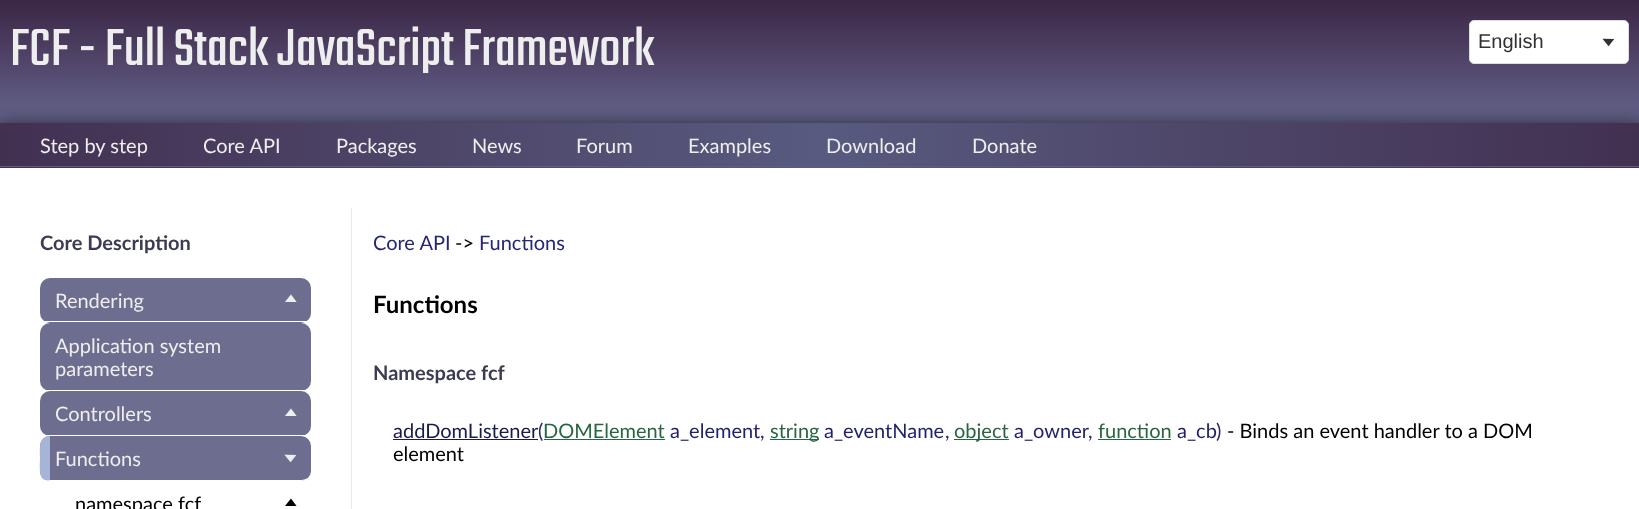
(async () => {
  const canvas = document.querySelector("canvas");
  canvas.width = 1639;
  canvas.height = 509;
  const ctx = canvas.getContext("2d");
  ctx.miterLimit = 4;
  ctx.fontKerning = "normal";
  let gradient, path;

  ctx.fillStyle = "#ffffff";
  ctx.fillRect(0, 0, 1639, 509);
  gradient = ctx.createLinearGradient(820, 0, 820, 168);
  gradient.addColorStop(0, "#3b2645");
  gradient.addColorStop(0.75, "#67668f");
  gradient.addColorStop(1, "#201145");
  ctx.fillStyle = gradient;
  ctx.fillRect(0, 0, 1639, 123);
  ctx.fillStyle = "#ffffff";
  ctx.beginPath();
  ctx.roundRect(1469.5, 20.5, 159, 43, 4.5);
  ctx.fill();
  ctx.strokeStyle = "#dedede";
  ctx.stroke();
  ctx.fillStyle = "#000000";
  ctx.filter = "blur(12.5px)";
  ctx.beginPath();
  ctx.rect(-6, 129, 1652, 57);
  ctx.fill();
  ctx.filter = "none";
  gradient = ctx.createLinearGradient(0, 144, 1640, 144);
  gradient.addColorStop(0, "#423051");
  gradient.addColorStop(0.5, "#585a7f");
  gradient.addColorStop(1, "#423051");
  ctx.fillStyle = gradient;
  ctx.fillRect(0, 123, 1639, 45);
  for (const [x, y, w, h, color] of [
    [0, 166, 1639, 1, "#5f5b82"],
    [0, 168, 1639, 47, "#ffffff"],
    [351, 208, 1, 301, "#eaeaea"],
  ]) {
    ctx.fillStyle = color;
    ctx.fillRect(x, y, w, h);
  }
  ctx.fillStyle = "#6d6d8f";
  ctx.beginPath();
  ctx.roundRect(40, 278, 271, 45, 10);
  ctx.fill();
  ctx.fillStyle = "#ffffff";
  ctx.fillRect(45, 321, 261, 1);
  ctx.fillStyle = "#6d6d8f";
  ctx.beginPath();
  ctx.roundRect(40, 323, 271, 68, 10);
  ctx.fill();
  ctx.fillStyle = "#ffffff";
  ctx.fillRect(45, 390, 261, 1);
  ctx.fillStyle = "#6d6d8f";
  ctx.beginPath();
  ctx.roundRect(40, 391, 271, 45, 10);
  ctx.fill();
  ctx.fillStyle = "#ffffff";
  ctx.fillRect(45, 435, 261, 1);
  ctx.fillStyle = "#6d6d8f";
  ctx.beginPath();
  ctx.roundRect(40, 436, 271, 45, 10);
  ctx.fill();
  ctx.fillStyle = "#ffffff";
  path = new Path2D("M301 481C307 481 311 477 311 471C311 476 307 480 301 480H50H46L50 481Z");
  ctx.fill(path);
  ctx.fillStyle = "#a6b5d7";
  path = new Path2D("M50 436V480H46C38 480 40 463 40 458C40 450 38 436 50 436Z");
  ctx.fill(path);
  for (const [x, y, w, h, color] of [
    [393, 439, 145, 1, "#1b1a4e"],
    [544, 439, 121, 1, "#286541"],
    [770, 439, 49, 1, "#286541"],
    [954, 439, 55, 1, "#286541"],
    [1098, 439, 73, 1, "#286541"],
  ]) {
    ctx.fillStyle = color;
    ctx.fillRect(x, y, w, h);
  }
  ctx.font = "57.5px Teko";
  ctx.fillStyle = "#eeeeee";
  ctx.fillText("FCF - Full Stack JavaScript Framework", 10, 65);
  ctx.font = "20px Liberation Sans";
  ctx.fillStyle = "#313131";
  ctx.fillText("English", 1478, 48);
  ctx.font = "20px 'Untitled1'";
  ctx.fillText("$", 1599, 48);
  ctx.font = "20px Lato";
  ctx.fillStyle = "#eeeeee";
  for (const [text, x, y] of [
    ["Step by step", 40, 153],
    ["Core API", 203, 153],
    ["Packages", 336, 153],
    ["News", 472, 153],
    ["Forum", 576, 153],
    ["Examples", 688, 153],
    ["Download", 826, 153],
    ["Donate", 972, 153],
  ]) {
    ctx.fillText(text, x, y);
  }
  ctx.font = "bold 20px Lato";
  ctx.fillStyle = "#3b3b52";
  ctx.fillText("Core Description", 40, 250);
  ctx.font = "20px Lato";
  ctx.fillStyle = "#eeeeee";
  ctx.fillText("Rendering", 55, 308);
  ctx.font = "20px 'Untitled1'";
  ctx.fillText("#", 280, 305);
  ctx.font = "20px Lato";
  for (const [text, x, y] of [
    ["Application system", 55, 353],
    ["parameters", 55, 376],
    ["Controllers", 55, 421],
  ]) {
    ctx.fillText(text, x, y);
  }
  ctx.font = "20px 'Untitled1'";
  ctx.fillText("#", 280, 419);
  ctx.font = "20px Lato";
  ctx.fillText("Functions", 55, 466);
  ctx.font = "20px 'Untitled1'";
  ctx.fillText("$", 281, 464);
  ctx.font = "20px Lato";
  ctx.fillStyle = "#000000";
  ctx.fillText("namespace fcf", 75, 511);
  ctx.font = "20px 'Untitled1'";
  ctx.fillText("#", 280, 509);
  ctx.font = "20px Lato";
  ctx.fillStyle = "#252773";
  ctx.fillText("Core API", 373, 250);
  ctx.fillStyle = "#000000";
  ctx.fillText("->", 455, 250);
  ctx.fillStyle = "#252773";
  ctx.fillText("Functions", 479, 250);
  ctx.font = "bold 24px Lato";
  ctx.fillStyle = "#000000";
  ctx.fillText("Functions", 373, 313);
  ctx.font = "bold 20px Lato";
  ctx.fillStyle = "#3b3b52";
  ctx.fillText("Namespace fcf", 373, 380);
  ctx.font = "20px Lato";
  ctx.fillStyle = "#1b1a4e";
  ctx.fillText("addDomListener", 393, 438);
  ctx.fillStyle = "#252773";
  ctx.fillText("(", 538, 438);
  ctx.fillStyle = "#286541";
  ctx.fillText("DOMElement", 543, 438);
  ctx.fillStyle = "#221f6f";
  ctx.fillText("a_element", 670, 438);
  ctx.fillStyle = "#252773";
  ctx.fillText(",", 760, 438);
  ctx.fillStyle = "#286541";
  ctx.fillText("string", 770, 438);
  ctx.fillStyle = "#221f6f";
  ctx.fillText("a_eventName", 824, 438);
  ctx.fillStyle = "#252773";
  ctx.fillText(",", 945, 438);
  ctx.fillStyle = "#286541";
  ctx.fillText("object", 954, 438);
  ctx.fillStyle = "#221f6f";
  ctx.fillText("a_owner", 1014, 438);
  ctx.fillStyle = "#252773";
  ctx.fillText(",", 1088, 438);
  ctx.fillStyle = "#286541";
  ctx.fillText("function", 1098, 438);
  ctx.fillStyle = "#221f6f";
  ctx.fillText("a_cb", 1177, 438);
  ctx.fillStyle = "#252773";
  ctx.fillText(")", 1216, 438);
  ctx.fillStyle = "#000000";
  ctx.fillText("- Binds an event handler to a DOM", 1227, 438);
  ctx.fillText("element", 393, 461);
})();
